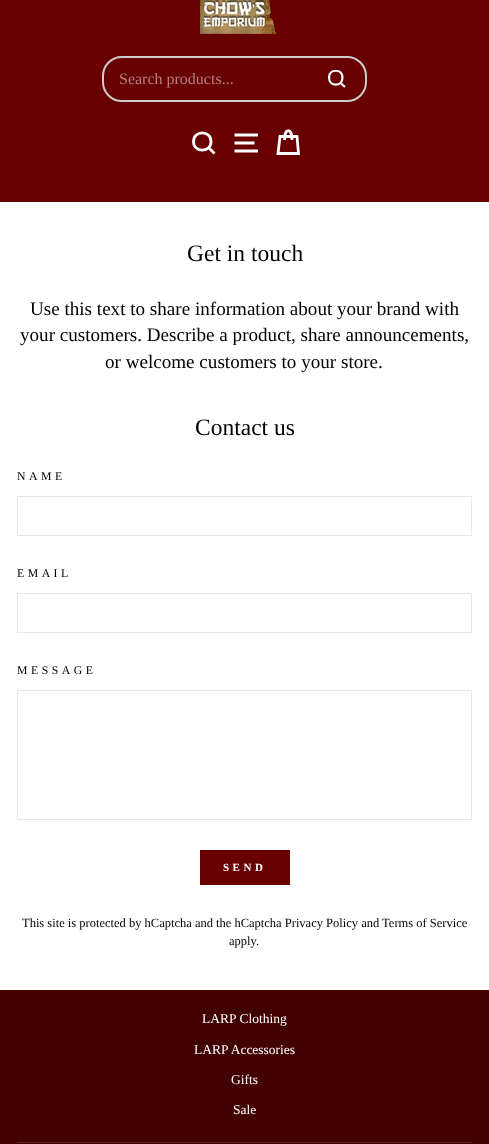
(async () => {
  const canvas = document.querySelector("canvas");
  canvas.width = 489;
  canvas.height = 1144;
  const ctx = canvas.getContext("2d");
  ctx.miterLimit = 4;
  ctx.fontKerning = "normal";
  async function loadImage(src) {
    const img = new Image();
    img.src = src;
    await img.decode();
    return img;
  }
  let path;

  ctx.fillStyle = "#ffffff";
  ctx.fillRect(0, 0, 489, 1144);
  ctx.fillStyle = "#690000";
  ctx.fillRect(0, 0, 489, 202);
  ctx.drawImage(await loadImage("img/1.png"), 200, 0, 77, 34);
  ctx.beginPath();
  ctx.roundRect(103, 57, 263, 44, 19);
  ctx.strokeStyle = "#cccccc";
  ctx.lineWidth = 2;
  ctx.stroke();
  path = new Path2D("M342.5 77.5C342.5 87 329 87 329 77.5C329 68.5 342.5 68.5 342.5 77.5ZM345 87L340.5 83");
  ctx.strokeStyle = "#ffffff";
  ctx.lineWidth = 2.2;
  ctx.stroke(path);
  path = new Path2D("M211 141.5C211 153 193.5 153 193.5 141.5C193.5 130 211 130 211 141.5ZM214.5 153.5L208.5 147.5");
  ctx.lineWidth = 2.8;
  ctx.stroke(path);
  path = new Path2D("M234.5 135H258M234.5 143H254.5M234.5 151H258M284.5 140C284.5 127.5 292 127.5 292 140");
  ctx.stroke(path);
  path = new Path2D("M280 136.5H297L298.5 153.5H278Z");
  ctx.stroke(path);
  ctx.strokeStyle = "#e8e8e1";
  ctx.lineWidth = 1;
  ctx.strokeRect(17.5, 496.5, 454, 39);
  ctx.strokeRect(17.5, 593.5, 454, 39);
  ctx.strokeRect(17.5, 690.5, 454, 129);
  for (const [x, y, w, h, color] of [
    [200, 850, 90, 35, "#690000"],
    [0, 990, 489, 154, "#430000"],
    [17, 1142, 455, 1, "#5a1f1f"],
  ]) {
    ctx.fillStyle = color;
    ctx.fillRect(x, y, w, h);
  }
  ctx.font = "16px Liberation Serif";
  ctx.fillStyle = "#b48080";
  ctx.fillText("Search products...", 119, 84);
  ctx.font = "23.5px Liberation Serif";
  ctx.fillStyle = "#000000";
  ctx.fillText("Get in touch", 187, 261);
  ctx.font = "19.1px Liberation Serif";
  for (const [text, x, y] of [
    ["Use this text to share information about your brand with", 30, 315],
    ["your customers. Describe a product, share announcements,", 20, 341],
    ["or welcome customers to your store.", 105, 368],
  ]) {
    ctx.fillText(text, x, y);
  }
  ctx.font = "23.5px Liberation Serif";
  ctx.fillText("Contact us", 195, 435);
  ctx.letterSpacing = "3.5px";
  ctx.font = "11.75px Liberation Serif";
  for (const [text, x, y] of [
    ["NAME", 17, 480],
    ["EMAIL", 17, 577],
    ["MESSAGE", 17, 674],
  ]) {
    ctx.fillText(text, x, y);
  }
  ctx.font = "bold 11px Liberation Serif";
  ctx.fillStyle = "#ffffff";
  ctx.fillText("SEND", 223, 871);
  ctx.letterSpacing = "0px";
  ctx.font = "12.5px Liberation Serif";
  ctx.fillStyle = "#000000";
  ctx.fillText("This site is protected by hCaptcha and the hCaptcha Privacy Policy and Terms of Service", 22, 927);
  ctx.fillText("apply.", 229, 945);
  ctx.font = "13.5px Liberation Serif";
  ctx.fillStyle = "#ffffff";
  for (const [text, x, y] of [
    ["LARP Clothing", 202, 1023],
    ["LARP Accessories", 194, 1054],
    ["Gifts", 231, 1084],
    ["Sale", 233, 1114],
  ]) {
    ctx.fillText(text, x, y);
  }
})();
